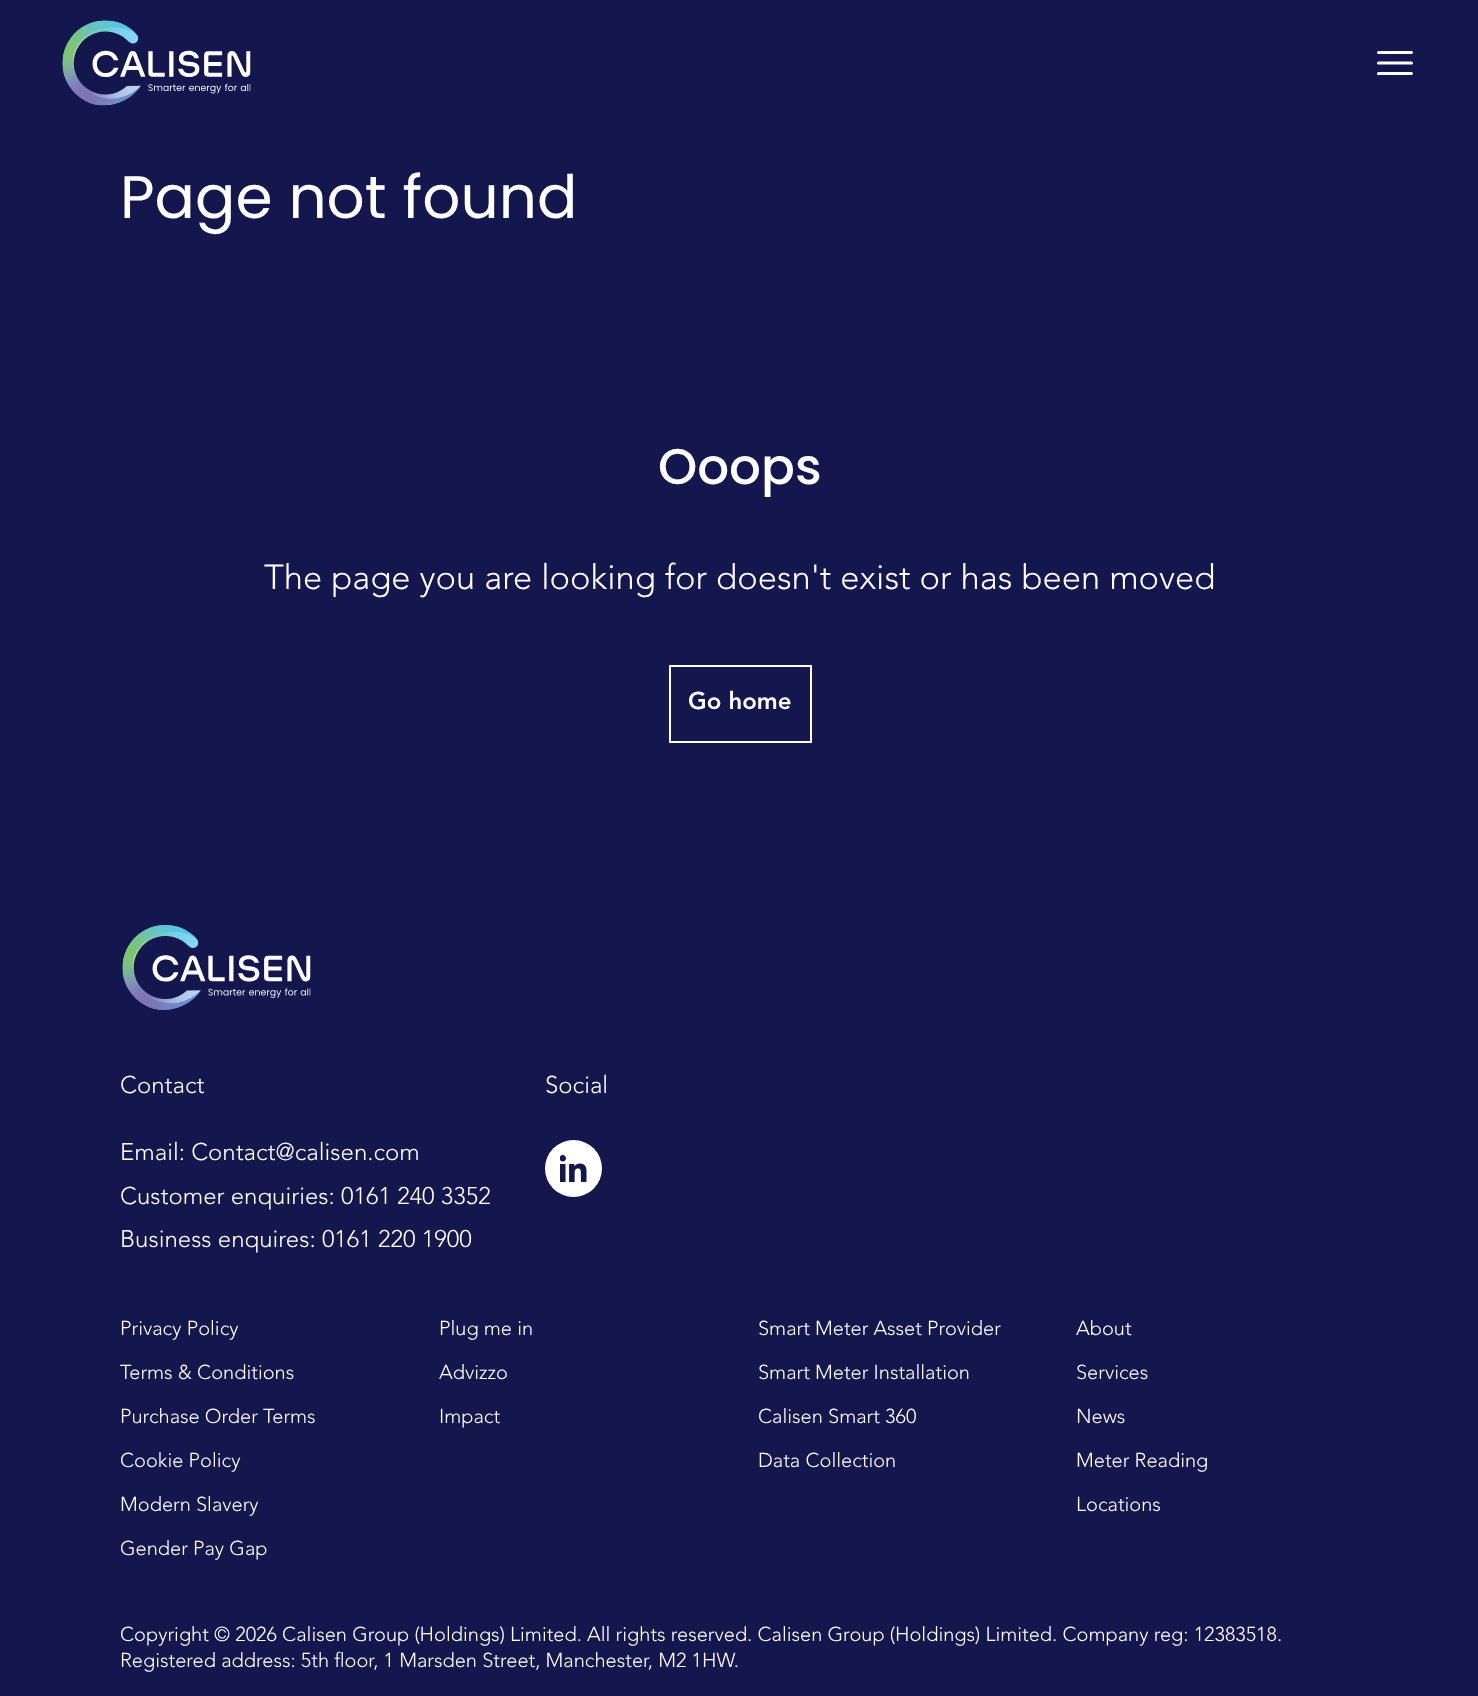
(async () => {
  const canvas = document.querySelector("canvas");
  canvas.width = 1478;
  canvas.height = 1696;
  const ctx = canvas.getContext("2d");
  ctx.miterLimit = 4;
  ctx.fontKerning = "normal";
  async function loadImage(src) {
    const img = new Image();
    img.src = src;
    await img.decode();
    return img;
  }
  let path;

  ctx.fillStyle = "#13174d";
  ctx.fillRect(0, 0, 1478, 1696);
  ctx.drawImage(await loadImage("img/1.png"), 62, 20, 189, 86);
  path = new Path2D("M1378.5 52.5H1411.5M1378.5 63H1411.5M1378.5 73.5H1411.5");
  ctx.strokeStyle = "#ffffff";
  ctx.lineWidth = 3;
  ctx.lineCap = "round";
  ctx.lineJoin = "round";
  ctx.stroke(path);
  ctx.lineWidth = 2;
  ctx.lineJoin = "miter";
  ctx.strokeRect(670, 666, 141, 76);
  ctx.drawImage(await loadImage("img/2.png"), 122, 925, 189, 85);
  ctx.fillStyle = "#ffffff";
  ctx.beginPath();
  ctx.arc(573.5, 1168.5, 28.5, 0, Math.PI * 2);
  ctx.fill();
  ctx.drawImage(await loadImage("img/3.png"), 560, 1155, 27, 27);
  ctx.font = "59.75px Poppins";
  ctx.fillText("Page not found", 120, 218);
  ctx.font = "500 50px Poppins";
  ctx.fillText("Ooops", 658, 484);
  ctx.font = "300 34.55px Avenir";
  ctx.fillText("The page you are looking for doesn't exist or has been moved", 264, 589);
  ctx.font = "900 24px Avenir";
  ctx.fillText("Go home", 688, 709);
  ctx.font = "300 24px Avenir";
  for (const [text, x, y] of [
    ["Contact", 120, 1093],
    ["Email: Contact@calisen.com", 120, 1160],
    ["Customer enquiries: 0161 240 3352", 120, 1204],
    ["Business enquires: 0161 220 1900", 120, 1247],
    ["Social", 545, 1093],
  ]) {
    ctx.fillText(text, x, y);
  }
  ctx.font = "300 20px Avenir";
  for (const [text, x, y] of [
    ["Privacy Policy", 120, 1335],
    ["Terms & Conditions", 120, 1379],
    ["Purchase Order Terms", 120, 1423],
    ["Cookie Policy", 120, 1467],
    ["Modern Slavery", 120, 1511],
    ["Gender Pay Gap", 120, 1555],
    ["Plug me in", 439, 1335],
    ["Advizzo", 439, 1379],
    ["Impact", 439, 1423],
    ["Smart Meter Asset Provider", 758, 1335],
    ["Smart Meter Installation", 758, 1379],
    ["Calisen Smart 360", 758, 1423],
    ["Data Collection", 758, 1467],
    ["About", 1076, 1335],
    ["Services", 1076, 1379],
    ["News", 1076, 1423],
    ["Meter Reading", 1076, 1467],
    ["Locations", 1076, 1511],
    ["Copyright © 2026 Calisen Group (Holdings) Limited. All rights reserved. Calisen Group (Holdings) Limited. Company reg: 12383518.", 120, 1641],
    ["Registered address: 5th floor, 1 Marsden Street, Manchester, M2 1HW.", 120, 1667],
  ]) {
    ctx.fillText(text, x, y);
  }
})();
